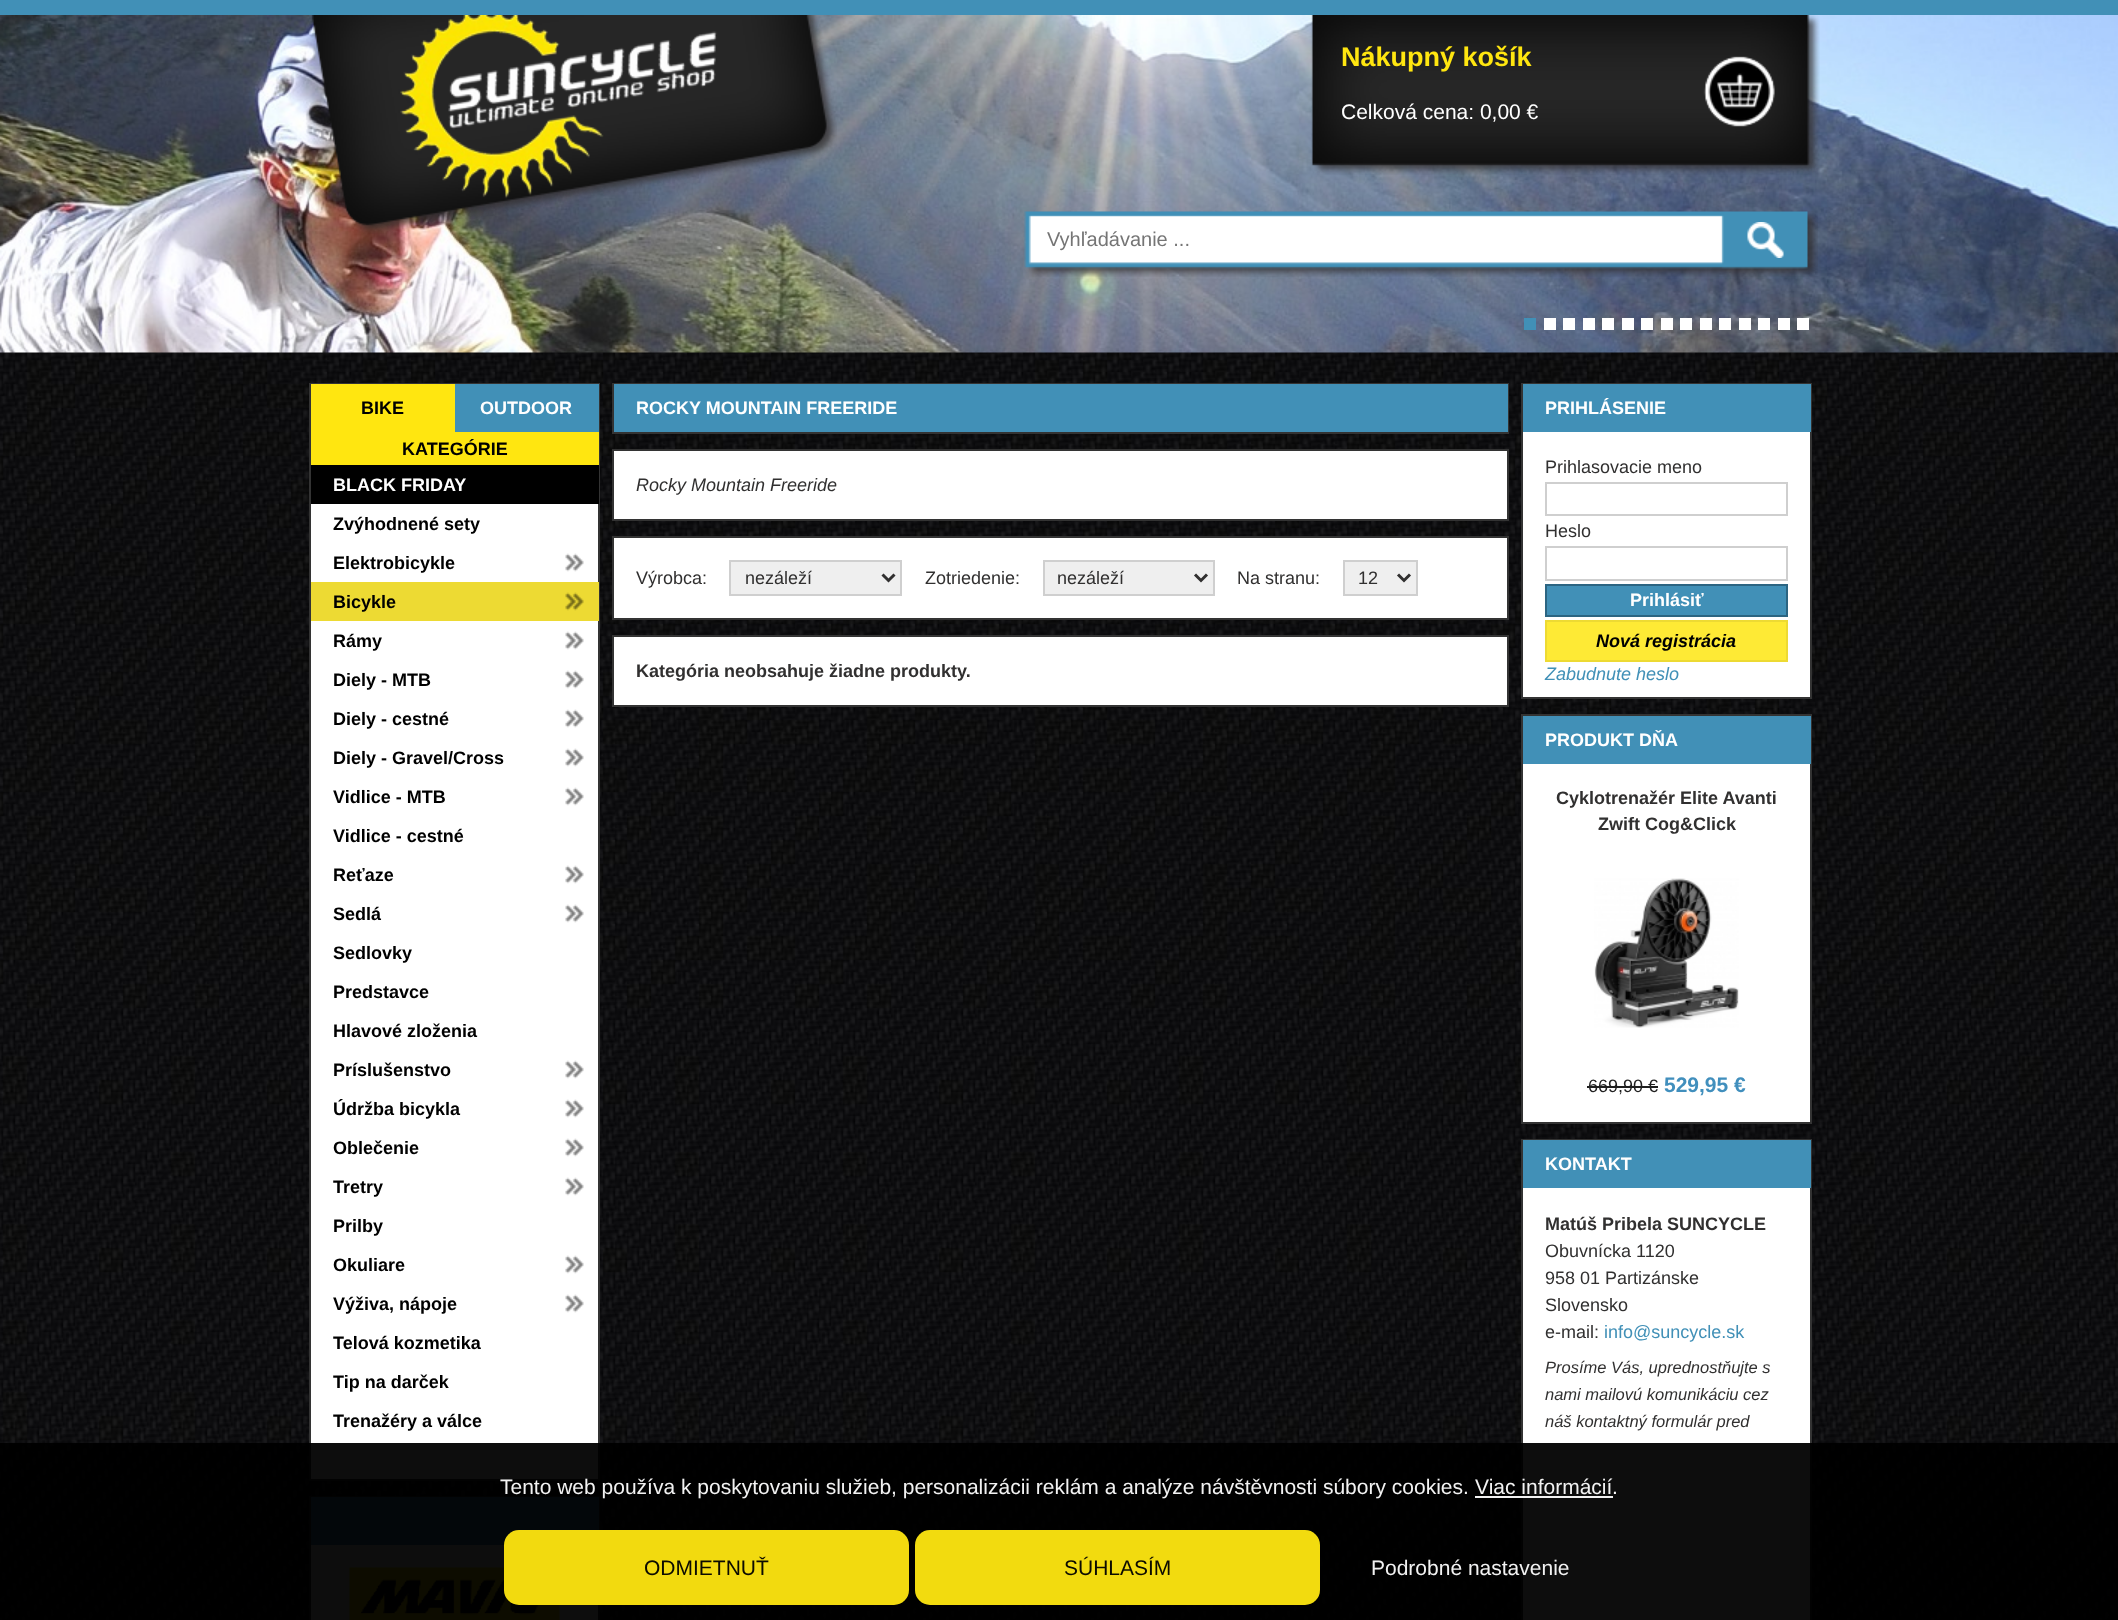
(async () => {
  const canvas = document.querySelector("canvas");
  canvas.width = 2118;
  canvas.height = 1620;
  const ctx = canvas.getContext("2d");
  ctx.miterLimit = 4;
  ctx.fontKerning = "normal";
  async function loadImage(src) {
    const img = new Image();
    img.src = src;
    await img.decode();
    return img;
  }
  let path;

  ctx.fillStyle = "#ffffff";
  ctx.fillRect(0, 0, 2118, 1620);
  ctx.drawImage(await loadImage("img/1.png"), 0, 352, 2118, 1268);
  ctx.fillStyle = "#4190b7";
  ctx.fillRect(0, 0, 2118, 15);
  ctx.drawImage(await loadImage("img/2.png"), 0, 15, 2118, 338);
  for (const [x, y, w, h, color] of [
    [1524, 318, 12, 12, "#4190b7"],
    [1544, 318, 12, 12, "#ffffff"],
    [1563, 318, 12, 12, "#ffffff"],
    [1583, 318, 12, 12, "#ffffff"],
    [1602, 318, 12, 12, "#ffffff"],
    [1622, 318, 12, 12, "#ffffff"],
    [1641, 318, 12, 12, "#ffffff"],
    [1661, 318, 12, 12, "#ffffff"],
    [1680, 318, 12, 12, "#ffffff"],
    [1700, 318, 12, 12, "#ffffff"],
    [1719, 318, 12, 12, "#ffffff"],
    [1739, 318, 12, 12, "#ffffff"],
    [1758, 318, 12, 12, "#ffffff"],
    [1778, 318, 12, 12, "#ffffff"],
    [1797, 318, 12, 12, "#ffffff"],
  ]) {
    ctx.fillStyle = color;
    ctx.fillRect(x, y, w, h);
  }
  ctx.drawImage(await loadImage("img/3.png"), 311, 15, 526, 219);
  ctx.drawImage(await loadImage("img/4.png"), 1311, 15, 509, 160);
  ctx.drawImage(await loadImage("img/5.png"), 1024, 211, 794, 66);
  ctx.drawImage(await loadImage("img/6.png"), 1747, 222, 37, 36);
  ctx.fillRect(311, 504, 287, 975);
  ctx.strokeStyle = "#333333";
  ctx.lineWidth = 2;
  ctx.strokeRect(310, 384, 289, 1096);
  for (const [x, y, w, h, color] of [
    [311, 384, 144, 48, "#ffe610"],
    [455, 384, 144, 48, "#4190b7"],
    [311, 432, 288, 33, "#ffe610"],
    [311, 465, 288, 39, "#000000"],
  ]) {
    ctx.fillStyle = color;
    ctx.fillRect(x, y, w, h);
  }
  ctx.drawImage(await loadImage("img/7.png"), 565, 553, 19, 19);
  ctx.fillStyle = "#edda33";
  ctx.fillRect(311, 582, 288, 39);
  ctx.drawImage(await loadImage("img/8.png"), 565, 592, 19, 19);
  ctx.drawImage(await loadImage("img/7.png"), 565, 631, 19, 19);
  ctx.drawImage(await loadImage("img/7.png"), 565, 670, 19, 19);
  ctx.drawImage(await loadImage("img/7.png"), 565, 709, 19, 19);
  ctx.drawImage(await loadImage("img/7.png"), 565, 748, 19, 19);
  ctx.drawImage(await loadImage("img/7.png"), 565, 787, 19, 19);
  ctx.drawImage(await loadImage("img/7.png"), 565, 865, 19, 19);
  ctx.drawImage(await loadImage("img/7.png"), 565, 904, 19, 19);
  ctx.drawImage(await loadImage("img/7.png"), 565, 1060, 19, 19);
  ctx.drawImage(await loadImage("img/7.png"), 565, 1099, 19, 19);
  ctx.drawImage(await loadImage("img/7.png"), 565, 1138, 19, 19);
  ctx.drawImage(await loadImage("img/7.png"), 565, 1177, 19, 19);
  ctx.drawImage(await loadImage("img/7.png"), 565, 1255, 19, 19);
  ctx.drawImage(await loadImage("img/7.png"), 565, 1294, 19, 19);
  ctx.fillStyle = "#ffffff";
  ctx.fillRect(311, 1545, 287, 75);
  ctx.strokeRect(310, 1497, 289, 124);
  ctx.fillStyle = "#4190b7";
  ctx.fillRect(311, 1497, 288, 48);
  ctx.drawImage(await loadImage("img/9.png"), 349, 1567, 211, 53);
  ctx.strokeRect(613, 384, 895, 49);
  ctx.fillRect(614, 384, 894, 48);
  ctx.fillStyle = "#ffffff";
  ctx.beginPath();
  ctx.rect(613, 450, 895, 70);
  ctx.fill();
  ctx.stroke();
  ctx.beginPath();
  ctx.rect(613, 537, 895, 82);
  ctx.fill();
  ctx.stroke();
  ctx.fillStyle = "#efefef";
  ctx.beginPath();
  ctx.rect(730, 561, 171, 34);
  ctx.fill();
  ctx.strokeStyle = "#cfcfcf";
  ctx.stroke();
  path = new Path2D("M882.5 574.5L888.5 580.5L894.5 574.5");
  ctx.strokeStyle = "#313030";
  ctx.lineWidth = 3;
  ctx.stroke(path);
  ctx.beginPath();
  ctx.rect(1044, 561, 170, 34);
  ctx.fill();
  ctx.strokeStyle = "#cfcfcf";
  ctx.lineWidth = 2;
  ctx.stroke();
  path = new Path2D("M1195 574.5L1201 580.5L1207 574.5");
  ctx.strokeStyle = "#313030";
  ctx.lineWidth = 3;
  ctx.stroke(path);
  ctx.beginPath();
  ctx.rect(1344, 561, 73, 34);
  ctx.fill();
  ctx.strokeStyle = "#cfcfcf";
  ctx.lineWidth = 2;
  ctx.stroke();
  path = new Path2D("M1398 574.5L1404 580.5L1410 574.5");
  ctx.strokeStyle = "#313030";
  ctx.lineWidth = 3;
  ctx.stroke(path);
  ctx.fillStyle = "#ffffff";
  ctx.beginPath();
  ctx.rect(613, 636, 895, 70);
  ctx.fill();
  ctx.strokeStyle = "#333333";
  ctx.lineWidth = 2;
  ctx.stroke();
  ctx.fillRect(1523, 432, 287, 265);
  ctx.strokeRect(1522, 384, 289, 314);
  ctx.fillStyle = "#4190b7";
  ctx.fillRect(1523, 384, 288, 48);
  ctx.strokeStyle = "#cfcfcf";
  ctx.strokeRect(1546, 483, 241, 32);
  ctx.strokeRect(1546, 547, 241, 33);
  ctx.beginPath();
  ctx.rect(1546, 585, 241, 31);
  ctx.fill();
  ctx.strokeStyle = "#2c6582";
  ctx.stroke();
  ctx.fillStyle = "#feea35";
  ctx.beginPath();
  ctx.rect(1546, 621, 241, 40);
  ctx.fill();
  ctx.strokeStyle = "#edda33";
  ctx.stroke();
  ctx.fillStyle = "#ffffff";
  ctx.fillRect(1523, 764, 287, 358);
  ctx.strokeStyle = "#333333";
  ctx.strokeRect(1522, 715, 289, 408);
  ctx.fillStyle = "#4190b7";
  ctx.fillRect(1523, 716, 288, 48);
  ctx.drawImage(await loadImage("img/10.png"), 1594, 878, 145, 150);
  ctx.fillStyle = "#1f1f1f";
  ctx.fillRect(1587, 1086, 71, 2);
  ctx.fillStyle = "#ffffff";
  ctx.fillRect(1523, 1188, 287, 432);
  ctx.strokeRect(1522, 1140, 289, 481);
  for (const [x, y, w, h, color] of [
    [1523, 1140, 288, 48, "#4190b7"],
    [0, 1443, 2118, 177, "rgba(0, 0, 0, 0.95)"],
    [1475, 1496, 138, 2, "rgba(255, 255, 255, 0.95)"],
  ]) {
    ctx.fillStyle = color;
    ctx.fillRect(x, y, w, h);
  }
  ctx.fillStyle = "rgba(255, 230, 16, 0.95)";
  ctx.beginPath();
  ctx.roundRect(504, 1530, 405, 75, 15);
  ctx.fill();
  ctx.fillStyle = "#f2db0f";
  ctx.beginPath();
  ctx.roundRect(915, 1530, 405, 75, 15);
  ctx.fill();
  ctx.font = "bold 27px Liberation Sans";
  ctx.fillStyle = "#ffe610";
  ctx.fillText("Nákupný košík", 1341, 66);
  ctx.font = "21px Liberation Sans";
  ctx.fillStyle = "#ffffff";
  ctx.fillText("Celková cena: 0,00 €", 1341, 119);
  ctx.font = "20px Liberation Sans";
  ctx.fillStyle = "#757575";
  ctx.fillText("Vyhľadávanie ...", 1047, 246);
  ctx.font = "bold 18px Liberation Sans";
  ctx.fillStyle = "#000000";
  ctx.fillText("BIKE", 361, 414);
  ctx.fillStyle = "#ffffff";
  ctx.fillText("OUTDOOR", 480, 414);
  ctx.fillStyle = "#000000";
  ctx.fillText("KATEGÓRIE", 402, 455);
  ctx.fillStyle = "#ffffff";
  ctx.fillText("BLACK FRIDAY", 333, 491);
  ctx.fillStyle = "#000000";
  for (const [text, x, y] of [
    ["Zvýhodnené sety", 333, 530],
    ["Elektrobicykle", 333, 569],
    ["Bicykle", 333, 608],
    ["Rámy", 333, 647],
    ["Diely - MTB", 333, 686],
    ["Diely - cestné", 333, 725],
    ["Diely - Gravel/Cross", 333, 764],
    ["Vidlice - MTB", 333, 803],
    ["Vidlice - cestné", 333, 842],
    ["Reťaze", 333, 881],
    ["Sedlá", 333, 920],
    ["Sedlovky", 333, 959],
    ["Predstavce", 333, 998],
    ["Hlavové zloženia", 333, 1037],
    ["Príslušenstvo", 333, 1076],
    ["Údržba bicykla", 333, 1115],
    ["Oblečenie", 333, 1154],
    ["Tretry", 333, 1193],
    ["Prilby", 333, 1232],
    ["Okuliare", 333, 1271],
    ["Výživa, nápoje", 333, 1310],
    ["Telová kozmetika", 333, 1349],
    ["Tip na darček", 333, 1388],
    ["Trenažéry a válce", 333, 1427],
  ]) {
    ctx.fillText(text, x, y);
  }
  ctx.fillStyle = "#ffffff";
  ctx.fillText("ROCKY MOUNTAIN FREERIDE", 636, 414);
  ctx.font = "italic 18px Liberation Sans";
  ctx.fillStyle = "#313030";
  ctx.fillText("Rocky Mountain Freeride", 636, 491);
  ctx.font = "18px Liberation Sans";
  for (const [text, x, y] of [
    ["Výrobca:", 636, 584],
    ["nezáleží", 745, 584],
    ["Zotriedenie:", 925, 584],
    ["nezáleží", 1057, 584],
    ["Na stranu:", 1237, 584],
    ["12", 1358, 584],
  ]) {
    ctx.fillText(text, x, y);
  }
  ctx.font = "bold 18px Liberation Sans";
  ctx.fillText("Kategória neobsahuje žiadne produkty.", 636, 677);
  ctx.fillStyle = "#ffffff";
  ctx.fillText("PRIHLÁSENIE", 1545, 414);
  ctx.font = "18px Liberation Sans";
  ctx.fillStyle = "#313030";
  ctx.fillText("Prihlasovacie meno", 1545, 473);
  ctx.fillText("Heslo", 1545, 537);
  ctx.font = "bold 18px Liberation Sans";
  ctx.fillStyle = "#ffffff";
  ctx.fillText("Prihlásiť", 1630, 606);
  ctx.font = "italic bold 18px Liberation Sans";
  ctx.fillStyle = "#000000";
  ctx.fillText("Nová registrácia", 1596, 647);
  ctx.font = "italic 18px Liberation Sans";
  ctx.fillStyle = "#4190b7";
  ctx.fillText("Zabudnute heslo", 1545, 680);
  ctx.font = "bold 18px Liberation Sans";
  ctx.fillStyle = "#ffffff";
  ctx.fillText("PRODUKT DŇA", 1545, 746);
  ctx.fillStyle = "#313030";
  ctx.fillText("Cyklotrenažér Elite Avanti", 1556, 804);
  ctx.fillText("Zwift Cog&Click", 1598, 830);
  ctx.font = "18px Liberation Sans";
  ctx.fillStyle = "#1f1f1f";
  ctx.fillText("669,90 €", 1588, 1092);
  ctx.font = "bold 21px Liberation Sans";
  ctx.fillStyle = "#418fbd";
  ctx.fillText("529,95 €", 1664, 1092);
  ctx.font = "bold 18px Liberation Sans";
  ctx.fillStyle = "#ffffff";
  ctx.fillText("KONTAKT", 1545, 1170);
  ctx.fillStyle = "#313030";
  ctx.fillText("Matúš Pribela SUNCYCLE", 1545, 1230);
  ctx.font = "18px Liberation Sans";
  for (const [text, x, y] of [
    ["Obuvnícka 1120", 1545, 1257],
    ["958 01 Partizánske", 1545, 1284],
    ["Slovensko", 1545, 1311],
    ["e-mail:", 1545, 1338],
  ]) {
    ctx.fillText(text, x, y);
  }
  ctx.fillStyle = "#4190b7";
  ctx.fillText("info@suncycle.sk", 1604, 1338);
  ctx.font = "italic 16.5px Liberation Sans";
  ctx.fillStyle = "#313030";
  for (const [text, x, y] of [
    ["Prosíme Vás, uprednostňujte s", 1545, 1373],
    ["nami mailovú komunikáciu cez", 1545, 1400],
    ["náš kontaktný formulár pred", 1545, 1427],
  ]) {
    ctx.fillText(text, x, y);
  }
  ctx.font = "21px Liberation Sans";
  ctx.fillStyle = "#f2f2f2";
  ctx.fillText("Tento web používa k poskytovaniu služieb, personalizácii reklám a analýze návštěvnosti súbory cookies.", 500, 1494);
  ctx.fillText("Viac informácií", 1475, 1494);
  ctx.fillStyle = "#ffffff";
  ctx.fillText(".", 1612, 1494);
  ctx.fillStyle = "#0c0b01";
  ctx.fillText("ODMIETNUŤ", 644, 1575);
  ctx.fillText("SÚHLASÍM", 1064, 1575);
  ctx.fillStyle = "#f2f2f2";
  ctx.fillText("Podrobné nastavenie", 1371, 1575);
})();
